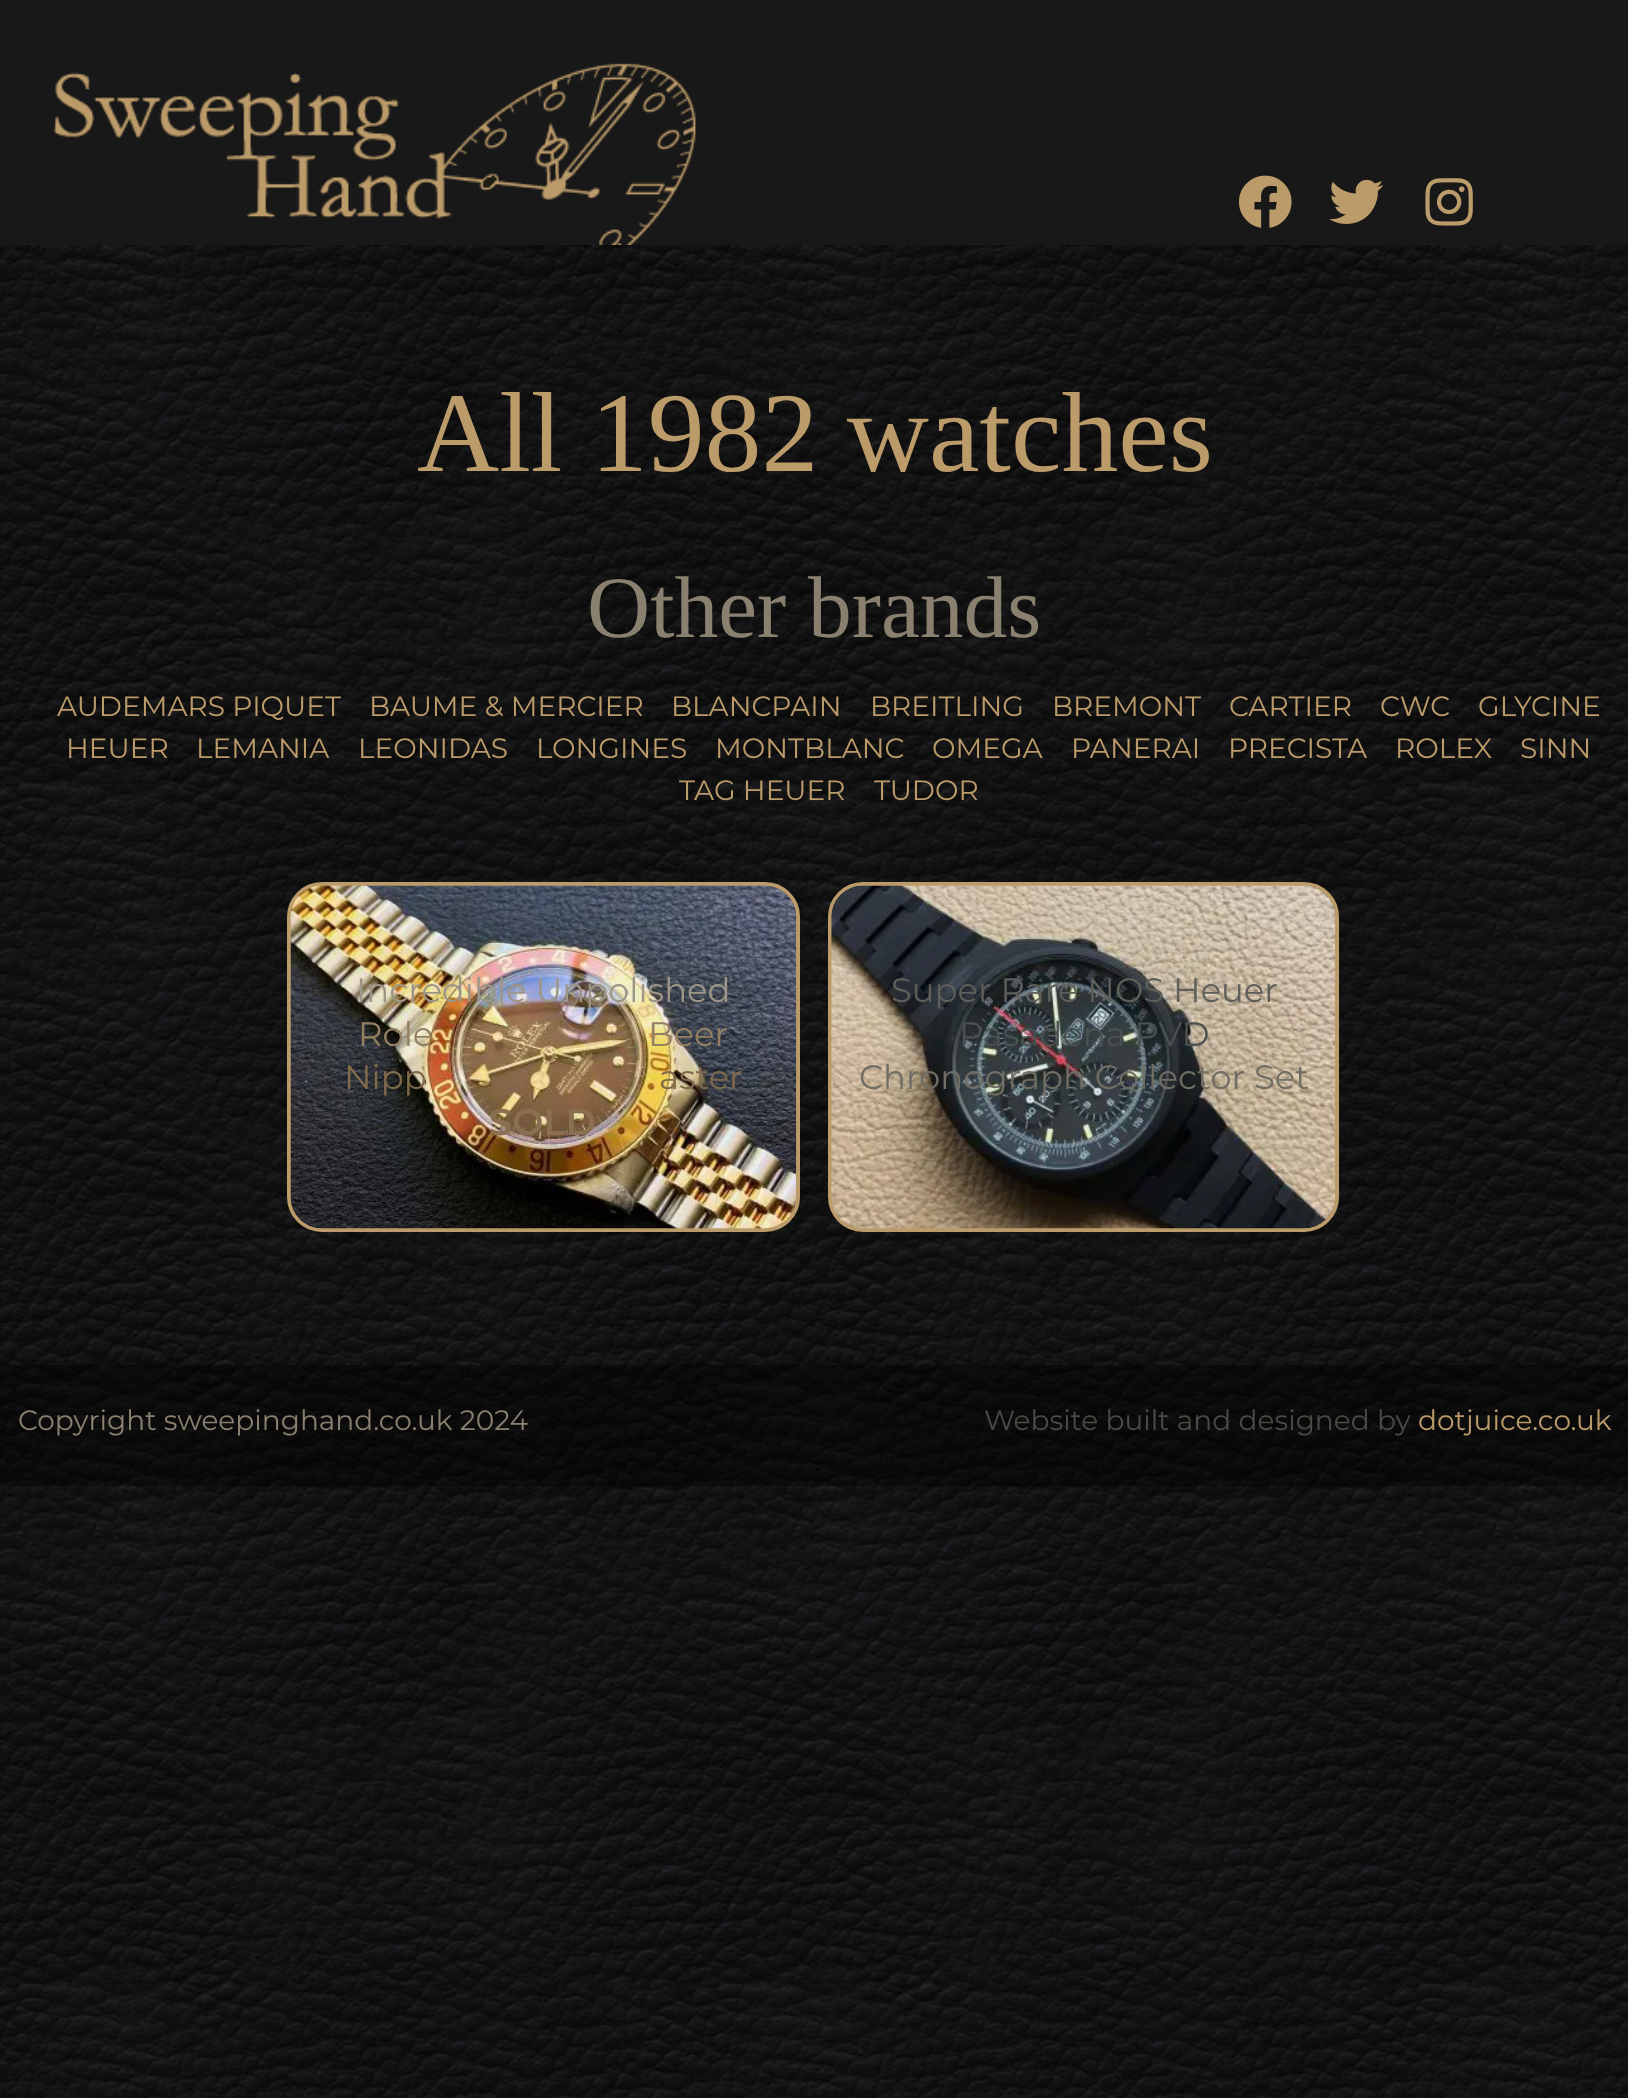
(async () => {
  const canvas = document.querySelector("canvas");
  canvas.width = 1628;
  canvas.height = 2098;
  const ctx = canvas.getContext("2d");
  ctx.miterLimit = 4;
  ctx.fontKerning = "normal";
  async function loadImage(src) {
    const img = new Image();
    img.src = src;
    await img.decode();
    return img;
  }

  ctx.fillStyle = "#ffffff";
  ctx.fillRect(0, 0, 1628, 2098);
  ctx.drawImage(await loadImage("img/1.png"), 0, 245, 1628, 1853);
  ctx.fillStyle = "#181818";
  ctx.fillRect(0, 0, 1628, 245);
  ctx.drawImage(await loadImage("img/2.png"), 53, 63, 643, 182);
  ctx.drawImage(await loadImage("img/3.png"), 1239, 175, 53, 53);
  ctx.drawImage(await loadImage("img/4.png"), 1329, 179, 55, 45);
  ctx.drawImage(await loadImage("img/5.png"), 1425, 178, 48, 48);
  ctx.beginPath();
  ctx.roundRect(289, 884, 509, 346, 33);
  ctx.strokeStyle = "#bc9b6a";
  ctx.lineWidth = 4;
  ctx.stroke();
  ctx.drawImage(await loadImage("img/6.png"), 290, 885, 507, 344);
  ctx.beginPath();
  ctx.roundRect(830, 884, 507, 346, 33);
  ctx.stroke();
  ctx.drawImage(await loadImage("img/7.png"), 831, 885, 505, 344);
  ctx.fillStyle = "rgba(0, 0, 0, 0.39)";
  ctx.fillRect(0, 1365, 1628, 121);
  ctx.font = "113.75px Liberation Serif";
  ctx.fillStyle = "#bc9b6a";
  ctx.fillText("All 1982 watches", 417, 471);
  ctx.font = "87.5px Liberation Serif";
  ctx.fillStyle = "#8a8070";
  ctx.fillText("Other brands", 587, 637);
  ctx.font = "28px Montserrat";
  ctx.fillStyle = "#bc9b6a";
  for (const [text, x, y] of [
    ["AUDEMARS PIQUET", 57, 716],
    ["BAUME & MERCIER", 369, 716],
    ["BLANCPAIN", 671, 716],
    ["BREITLING", 870, 716],
    ["BREMONT", 1052, 716],
    ["CARTIER", 1229, 716],
    ["CWC", 1380, 716],
    ["GLYCINE", 1478, 716],
    ["HEUER", 66, 758],
    ["LEMANIA", 196, 758],
    ["LEONIDAS", 358, 758],
    ["LONGINES", 536, 758],
    ["MONTBLANC", 715, 758],
    ["OMEGA", 932, 758],
    ["PANERAI", 1071, 758],
    ["PRECISTA", 1228, 758],
    ["ROLEX", 1395, 758],
    ["SINN", 1520, 758],
    ["TAG HEUER", 679, 800],
    ["TUDOR", 874, 800],
  ]) {
    ctx.fillText(text, x, y);
  }
  ctx.font = "33.9px Montserrat";
  ctx.fillStyle = "#9d9688";
  ctx.fillText("Incredible Unpolished", 356, 1002);
  ctx.fillStyle = "#938062";
  ctx.fillText("Role", 358, 1046);
  ctx.fillText("Beer", 648, 1046);
  ctx.fillStyle = "#806a4b";
  ctx.fillText("Nipp", 344, 1089);
  ctx.fillText("aster", 659, 1089);
  ctx.font = "600 37px Montserrat";
  ctx.fillStyle = "#8a6f50";
  ctx.fillText("SOLD", 489, 1135);
  ctx.font = "33.9px Montserrat";
  ctx.fillStyle = "#5e5e5a";
  ctx.fillText("Super Rare NOS Heuer", 891, 1002);
  ctx.fillStyle = "#4b5051";
  ctx.fillText("Pasadena PVD", 959, 1046);
  ctx.fillStyle = "#706d64";
  ctx.fillText("Chronograph Collector Set", 859, 1089);
  ctx.font = "28px Montserrat";
  ctx.fillStyle = "#8a8070";
  ctx.fillText("Copyright sweepinghand.co.uk 2024", 18, 1430);
  ctx.fillStyle = "#4d4a45";
  ctx.fillText("Website built and designed by", 984, 1430);
  ctx.fillStyle = "#bc9b6a";
  ctx.fillText("dotjuice.co.uk", 1418, 1430);
})();
